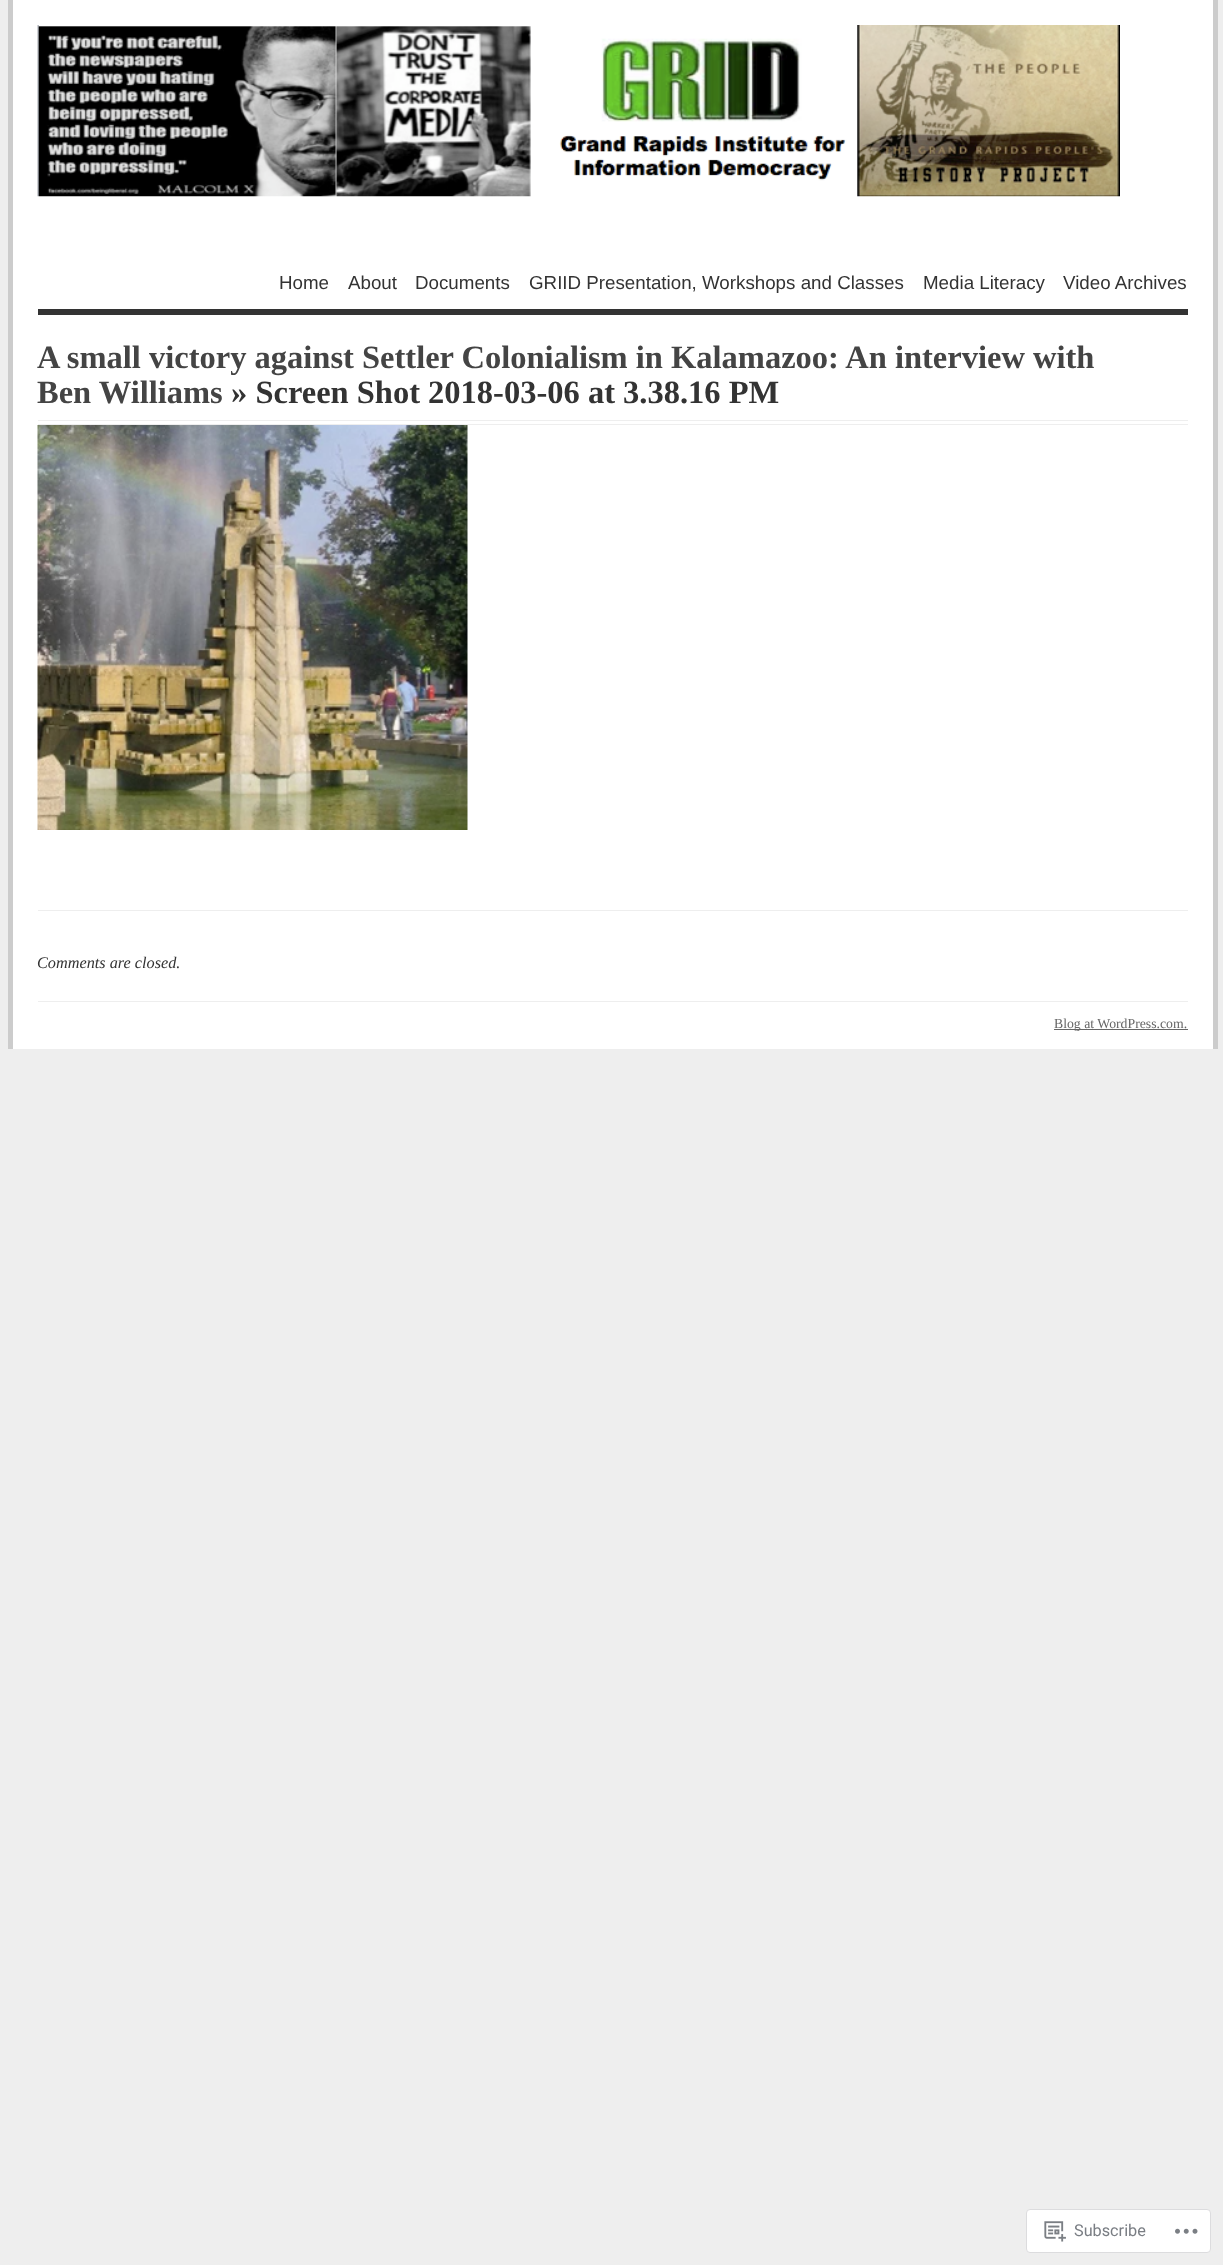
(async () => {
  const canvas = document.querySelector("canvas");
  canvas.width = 1223;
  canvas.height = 2265;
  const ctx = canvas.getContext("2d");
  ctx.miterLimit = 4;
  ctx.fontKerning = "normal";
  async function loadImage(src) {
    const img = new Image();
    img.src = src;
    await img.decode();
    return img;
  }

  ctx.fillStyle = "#eeeeee";
  ctx.fillRect(0, 0, 1223, 2265);
  for (const [x, y, w, h, color] of [
    [13, 0, 1200, 1049, "#ffffff"],
    [1213, 0, 5, 1049, "#cccccc"],
    [8, 0, 5, 1049, "#cccccc"],
    [38, 309, 1150, 6, "#333333"],
  ]) {
    ctx.fillStyle = color;
    ctx.fillRect(x, y, w, h);
  }
  ctx.drawImage(await loadImage("img/1.png"), 37, 25, 1083, 172);
  ctx.fillStyle = "#eeeeee";
  ctx.fillRect(38, 420, 1150, 1);
  ctx.fillRect(38, 424, 1150, 1);
  ctx.drawImage(await loadImage("img/2.png"), 37, 425, 431, 405);
  for (const [x, y, w, h, color] of [
    [38, 910, 1150, 1, "#eeeeee"],
    [38, 1001, 1150, 1, "#eeeeee"],
    [1054, 1029, 134, 1, "#666666"],
  ]) {
    ctx.fillStyle = color;
    ctx.fillRect(x, y, w, h);
  }
  ctx.fillStyle = "#ffffff";
  ctx.beginPath();
  ctx.roundRect(1026.5, 2209.5, 184, 43, 3.5);
  ctx.fill();
  ctx.strokeStyle = "#dcdcde";
  ctx.stroke();
  ctx.drawImage(await loadImage("img/3.png"), 1044, 2221, 22, 21);
  ctx.drawImage(await loadImage("img/4.png"), 1175, 2228, 23, 6);
  ctx.font = "18.75px Liberation Sans";
  ctx.fillStyle = "#333333";
  for (const [text, x, y] of [
    ["Home", 279, 289],
    ["About", 348, 289],
    ["Documents", 415, 289],
    ["GRIID Presentation, Workshops and Classes", 529, 289],
    ["Media Literacy", 923, 289],
    ["Video Archives", 1063, 289],
  ]) {
    ctx.fillText(text, x, y);
  }
  ctx.font = "bold 32.5px Liberation Serif";
  ctx.fillStyle = "#444444";
  ctx.fillText("A small victory against Settler Colonialism in Kalamazoo: An interview with", 37, 368);
  ctx.fillText("Ben Williams", 37, 403);
  ctx.fillStyle = "#333333";
  ctx.fillText("» Screen Shot 2018-03-06 at 3.38.16 PM", 231, 403);
  ctx.font = "italic 16.25px Liberation Serif";
  ctx.fillText("Comments are closed.", 37, 968);
  ctx.font = "13.75px Liberation Serif";
  ctx.fillStyle = "#666666";
  ctx.fillText("Blog at WordPress.com.", 1054, 1028);
  ctx.font = "16.25px Roboto";
  ctx.fillStyle = "#7a7e84";
  ctx.fillText("Subscribe", 1074, 2236);
})();
